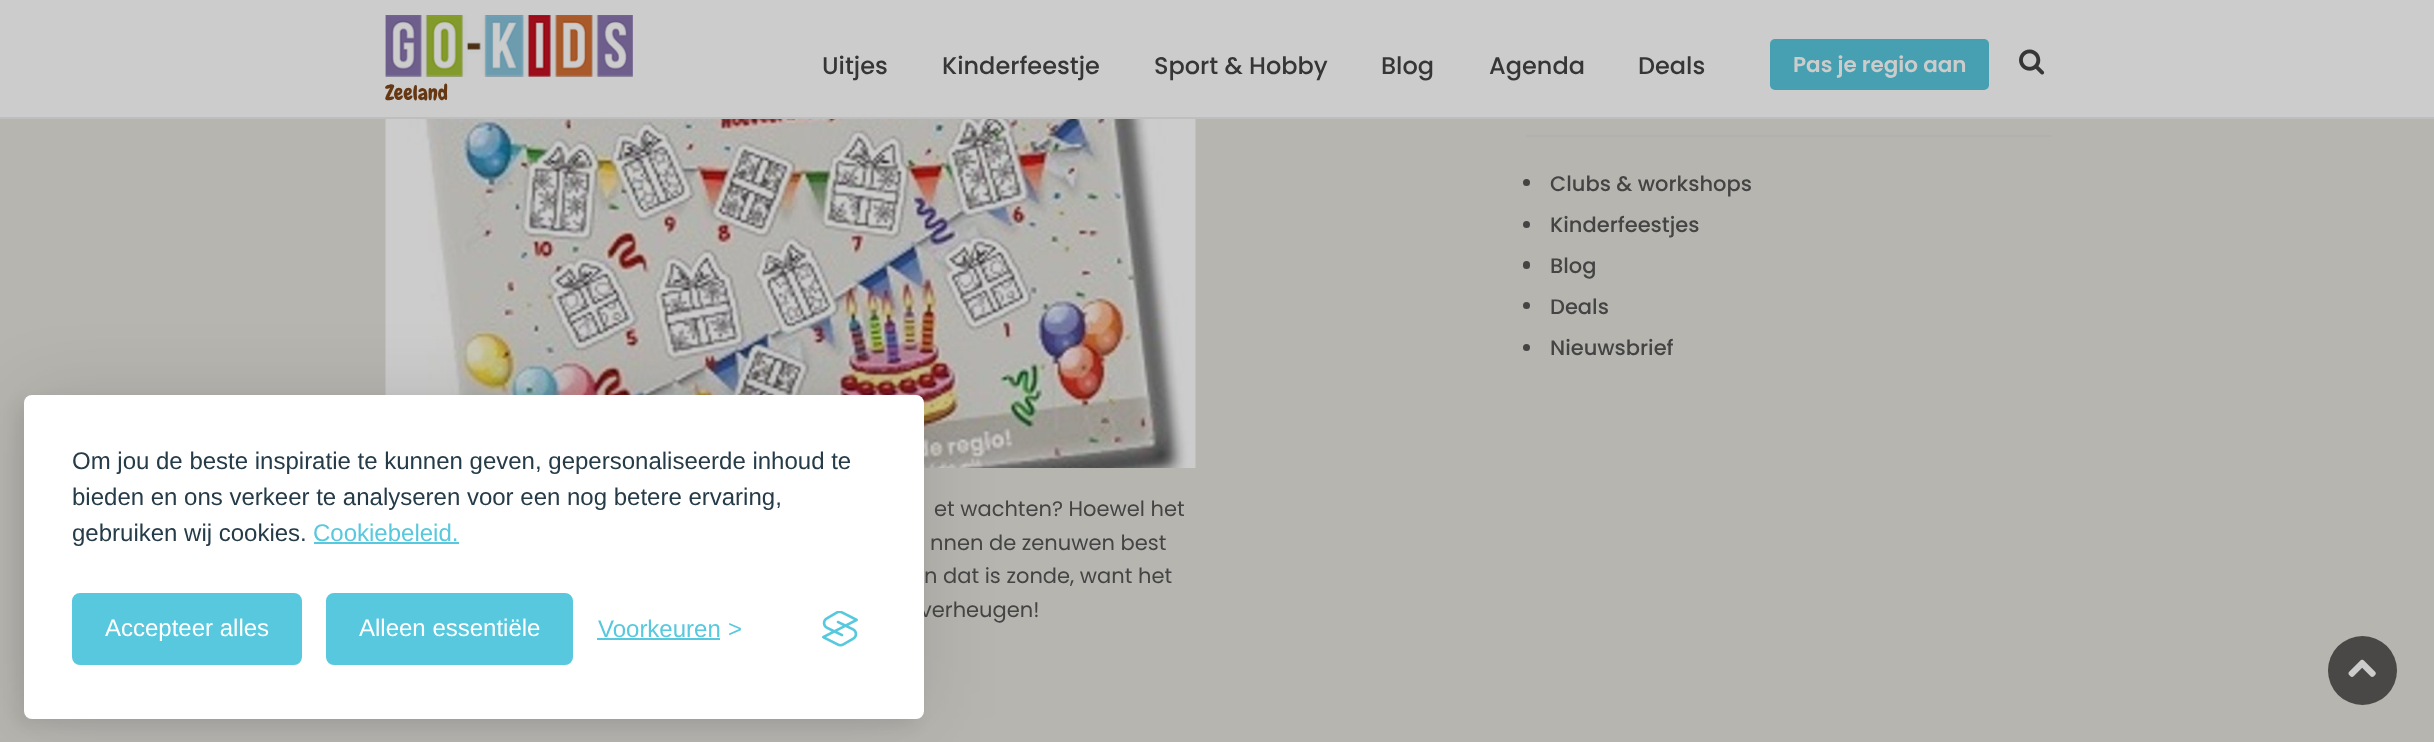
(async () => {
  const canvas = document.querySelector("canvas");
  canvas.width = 2434;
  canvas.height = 742;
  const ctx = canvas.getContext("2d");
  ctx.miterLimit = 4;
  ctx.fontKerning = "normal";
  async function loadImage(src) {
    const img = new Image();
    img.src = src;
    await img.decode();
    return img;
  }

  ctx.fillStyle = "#b6b5b0";
  ctx.fillRect(0, 0, 2434, 742);
  ctx.fillStyle = "#cccccc";
  ctx.fillRect(0, 0, 2434, 117);
  ctx.fillStyle = "#bebebe";
  ctx.fillRect(0, 117, 2434, 2);
  ctx.fillStyle = "#46a0b1";
  ctx.beginPath();
  ctx.roundRect(1770, 39, 219, 51, 5);
  ctx.fill();
  ctx.drawImage(await loadImage("img/1.png"), 2019, 49, 26, 26);
  ctx.drawImage(await loadImage("img/2.png"), 385, 15, 248, 62);
  ctx.fillStyle = "#b1b1b1";
  ctx.fillRect(1526, 135, 525, 2);
  ctx.fillStyle = "#444444";
  ctx.beginPath();
  ctx.arc(1526.5, 182.5, 3.5, 0, Math.PI * 2);
  ctx.fill();
  ctx.beginPath();
  ctx.arc(1526.5, 224.5, 3.5, 0, Math.PI * 2);
  ctx.fill();
  ctx.beginPath();
  ctx.roundRect(1523, 261, 7, 8, 3.5);
  ctx.fill();
  ctx.beginPath();
  ctx.arc(1526.5, 305.5, 3.5, 0, Math.PI * 2);
  ctx.fill();
  ctx.beginPath();
  ctx.arc(1526.5, 347.5, 3.5, 0, Math.PI * 2);
  ctx.fill();
  ctx.drawImage(await loadImage("img/3.png"), 385, 119, 811, 349);
  ctx.fillStyle = "#494846";
  ctx.beginPath();
  ctx.arc(2362.5, 670.5, 34.5, 0, Math.PI * 2);
  ctx.fill();
  ctx.drawImage(await loadImage("img/4.png"), 2348, 659, 28, 18);
  ctx.fillStyle = "rgba(0, 0, 0, 0.1)";
  ctx.filter = "blur(37.5px)";
  ctx.beginPath();
  ctx.roundRect(24, 395, 900, 324, 8);
  ctx.fill();
  ctx.filter = "none";
  ctx.fillStyle = "rgba(0, 0, 0, 0.07)";
  ctx.filter = "blur(7.5px)";
  ctx.beginPath();
  ctx.roundRect(17, 402, 900, 324, 8);
  ctx.fill();
  ctx.filter = "none";
  ctx.font = "500 24px Poppins";
  ctx.fillStyle = "#363636";
  for (const [text, x, y] of [
    ["Uitjes", 822, 74],
    ["Kinderfeestje", 942, 74],
    ["Sport & Hobby", 1154, 74],
    ["Blog", 1381, 74],
    ["Agenda", 1489, 74],
    ["Deals", 1638, 74],
  ]) {
    ctx.fillText(text, x, y);
  }
  ctx.font = "600 21.5px Poppins";
  ctx.fillStyle = "#cccccc";
  ctx.fillText("Pas je regio aan", 1793, 72);
  ctx.font = "21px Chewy";
  ctx.fillStyle = "#663713";
  ctx.fillText("Zeeland", 385, 100);
  ctx.font = "500 21px Poppins";
  ctx.fillStyle = "#444444";
  for (const [text, x, y] of [
    ["Clubs & workshops", 1550, 191],
    ["Kinderfeestjes", 1550, 232],
    ["Blog", 1550, 273],
    ["Deals", 1550, 314],
    ["Nieuwsbrief", 1550, 355],
  ]) {
    ctx.fillText(text, x, y);
  }
  ctx.font = "21px Poppins";
  for (const [text, x, y] of [
    ["et wachten? Hoewel het", 934, 516],
    ["nnen de zenuwen best", 930, 550],
    ["n dat is zonde, want het", 924, 583],
    ["verheugen!", 920, 617],
  ]) {
    ctx.fillText(text, x, y);
  }
  ctx.fillStyle = "#ffffff";
  ctx.beginPath();
  ctx.roundRect(24, 395, 900, 324, 8);
  ctx.fill();
  ctx.font = "24px Liberation Sans";
  ctx.fillStyle = "#253b48";
  for (const [text, x, y] of [
    ["Om jou de beste inspiratie te kunnen geven, gepersonaliseerde inhoud te", 72, 469],
    ["bieden en ons verkeer te analyseren voor een nog betere ervaring,", 72, 505],
    ["gebruiken wij cookies.", 72, 541],
  ]) {
    ctx.fillText(text, x, y);
  }
  ctx.fillStyle = "#57c8dd";
  ctx.fillText("Cookiebeleid.", 313, 541);
  ctx.fillRect(314, 542, 145, 2);
  ctx.beginPath();
  ctx.roundRect(73.5, 594.5, 227, 69, 6.5);
  ctx.fill();
  ctx.strokeStyle = "#57c8dd";
  ctx.lineWidth = 3;
  ctx.stroke();
  ctx.fillStyle = "#ffffff";
  ctx.fillText("Accepteer alles", 105, 636);
  ctx.fillStyle = "#57c8dd";
  ctx.beginPath();
  ctx.roundRect(327.5, 594.5, 244, 69, 6.5);
  ctx.fill();
  ctx.stroke();
  ctx.fillStyle = "#ffffff";
  ctx.fillText("Alleen essentiële", 359, 636);
  ctx.fillStyle = "#57c8dd";
  ctx.fillText("Voorkeuren", 598, 637);
  ctx.fillRect(597, 638, 123, 2);
  ctx.fillText(">", 728, 637);
  ctx.drawImage(await loadImage("img/5.png"), 822, 611, 36, 36);
})();
